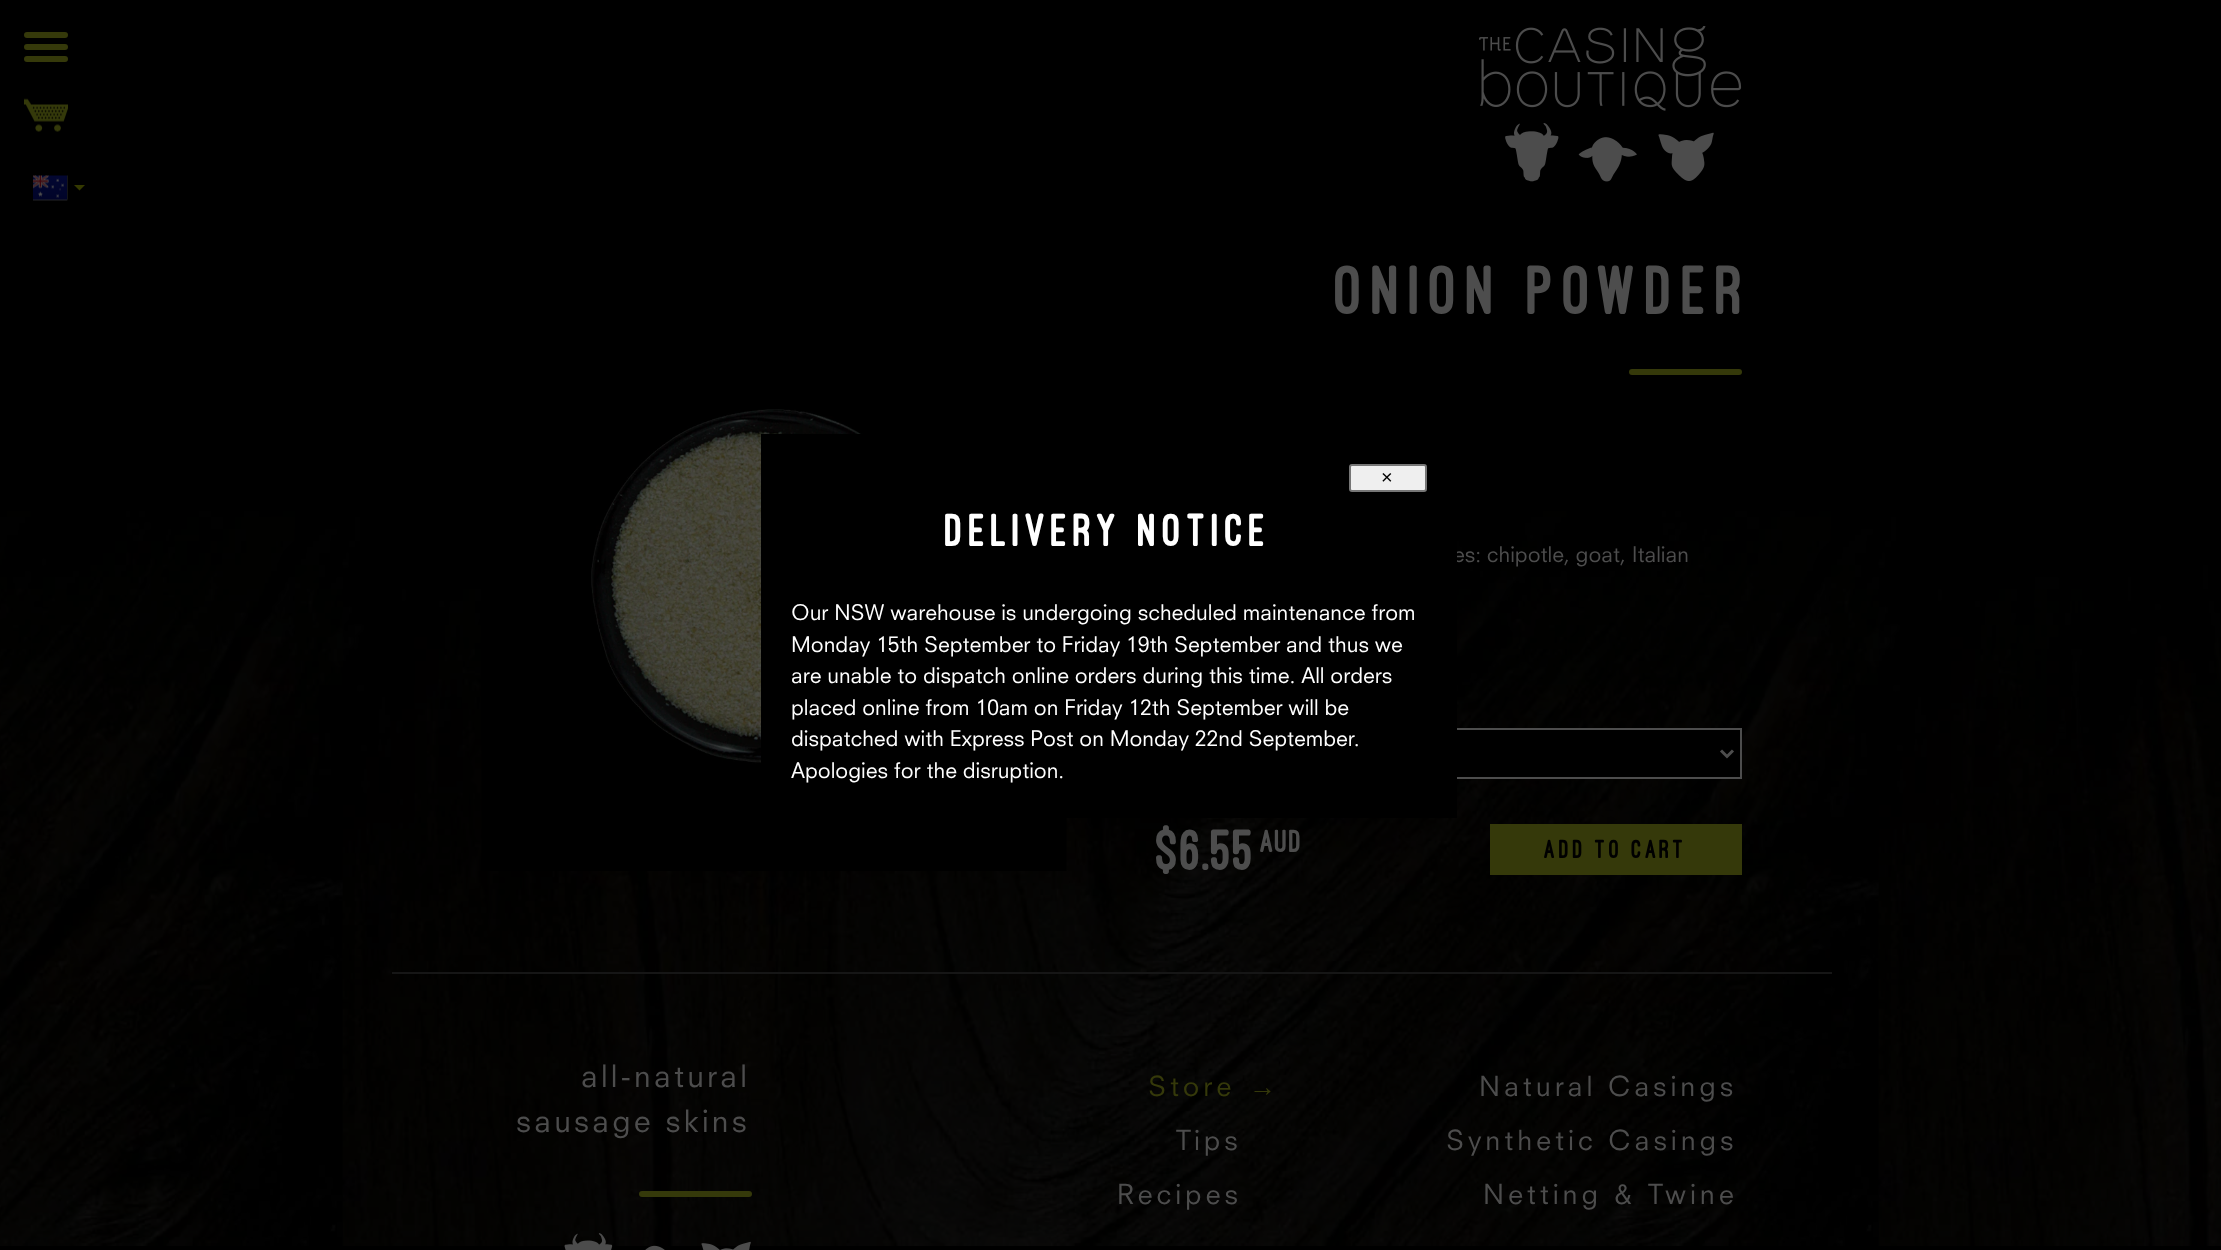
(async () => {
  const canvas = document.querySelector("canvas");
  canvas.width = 2221;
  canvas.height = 1250;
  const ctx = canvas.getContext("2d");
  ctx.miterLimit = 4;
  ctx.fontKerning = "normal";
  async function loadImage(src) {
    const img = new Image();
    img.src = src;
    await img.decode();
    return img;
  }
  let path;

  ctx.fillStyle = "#000000";
  ctx.fillRect(0, 0, 2221, 1250);
  ctx.drawImage(await loadImage("img/1.png"), 0, 511, 2221, 735);
  ctx.fillStyle = "#35390a";
  ctx.beginPath();
  ctx.roundRect(24, 32, 44, 6, 3);
  ctx.fill();
  ctx.beginPath();
  ctx.roundRect(24, 44, 44, 6, 3);
  ctx.fill();
  ctx.beginPath();
  ctx.roundRect(24, 56, 44, 6, 3);
  ctx.fill();
  ctx.drawImage(await loadImage("img/2.png"), 24, 98, 44, 34);
  ctx.drawImage(await loadImage("img/3.png"), 33, 175, 35, 26);
  ctx.save();
  ctx.beginPath();
  ctx.rect(74, 185, 12, 6);
  ctx.clip();
  ctx.fillStyle = "#343900";
  path = new Path2D("M73.5 184.5H85.5L79.5 190.5Z");
  ctx.fill(path, "evenodd");
  ctx.restore();
  ctx.drawImage(await loadImage("img/4.png"), 1479, 26, 263, 85);
  ctx.drawImage(await loadImage("img/5.png"), 1505, 123, 209, 59);
  ctx.beginPath();
  ctx.roundRect(1629, 369, 113, 6, 3);
  ctx.fill();
  ctx.drawImage(await loadImage("img/6.png"), 481, 409, 586, 462);
  ctx.fillStyle = "#000000";
  ctx.fillRect(1457, 730, 283, 47);
  ctx.strokeStyle = "#4d4d4d";
  ctx.lineWidth = 2;
  ctx.strokeRect(1158, 729, 583, 49);
  path = new Path2D("M1721 750.5L1727 756.5L1733 750.5");
  ctx.lineWidth = 3;
  ctx.stroke(path);
  ctx.fillStyle = "#35390a";
  ctx.fillRect(1490, 824, 252, 51);
  ctx.fillStyle = "#161616";
  ctx.fillRect(392, 972, 1440, 2);
  ctx.fillStyle = "#35390a";
  ctx.beginPath();
  ctx.roundRect(639, 1191, 113, 6, 3);
  ctx.fill();
  ctx.drawImage(await loadImage("img/7.png"), 564, 1233, 187, 17);
  ctx.letterSpacing = "8px";
  ctx.font = "900 72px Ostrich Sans";
  ctx.fillStyle = "#4d4d4d";
  ctx.fillText("Onion Powder", 1335, 314);
  ctx.letterSpacing = "0px";
  ctx.font = "21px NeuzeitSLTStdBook";
  ctx.fillText("es: chipotle, goat, Italian", 1453, 562);
  ctx.fillStyle = "#000000";
  ctx.fillRect(761, 434, 696, 384);
  ctx.fillStyle = "#efefef";
  ctx.beginPath();
  ctx.roundRect(1350, 465, 76, 26, 2);
  ctx.fill();
  ctx.strokeStyle = "#767676";
  ctx.lineWidth = 2;
  ctx.stroke();
  ctx.font = "20px Liberation Sans";
  ctx.fillStyle = "#000000";
  ctx.fillText("×", 1381, 484);
  ctx.font = "21px NeuzeitSLTStdBook";
  ctx.fillStyle = "#ffffff";
  for (const [text, x, y] of [
    ["Apologies for the disruption.", 791, 778],
    ["dispatched with Express Post on Monday 22nd September.", 791, 746],
    ["placed online from 10am on Friday 12th September will be", 791, 715],
    ["are unable to dispatch online orders during this time. All orders", 791, 683],
    ["Monday 15th September to Friday 19th September and thus we", 791, 652],
    ["Our NSW warehouse is undergoing scheduled maintenance from", 791, 620],
  ]) {
    ctx.fillText(text, x, y);
  }
  ctx.letterSpacing = "5.25px";
  ctx.font = "900 48px Ostrich Sans";
  ctx.fillText("Delivery Notice", 945, 546);
  ctx.letterSpacing = "0.5px";
  ctx.font = "900 60px Ostrich Sans";
  ctx.fillStyle = "#4d4d4d";
  ctx.fillText("$6.55", 1156, 870);
  ctx.font = "900 33px Ostrich Sans";
  ctx.fillText("AUD", 1260, 852);
  ctx.letterSpacing = "3px";
  ctx.font = "900 27px Ostrich Sans";
  ctx.fillStyle = "#000000";
  ctx.fillText("ADD TO CART", 1544, 858);
  ctx.letterSpacing = "3.25px";
  ctx.font = "30px NeuzeitSLTStdBook";
  ctx.fillStyle = "#4d4d4d";
  ctx.fillText("all-natural", 581, 1087);
  ctx.fillText("sausage skins", 516, 1132);
  ctx.letterSpacing = "3.9px";
  ctx.font = "27px NeuzeitSLTStdBook";
  ctx.fillStyle = "#35390a";
  ctx.fillText("Store", 1148, 1096);
  ctx.font = "27px Liberation Serif";
  ctx.fillText("→", 1249, 1096);
  ctx.font = "27px NeuzeitSLTStdBook";
  ctx.fillStyle = "#4d4d4d";
  for (const [text, x, y] of [
    ["Tips", 1176, 1150],
    ["Recipes", 1117, 1204],
    ["Natural Casings", 1479, 1096],
    ["Synthetic Casings", 1446, 1150],
    ["Netting & Twine", 1483, 1204],
  ]) {
    ctx.fillText(text, x, y);
  }
})();
